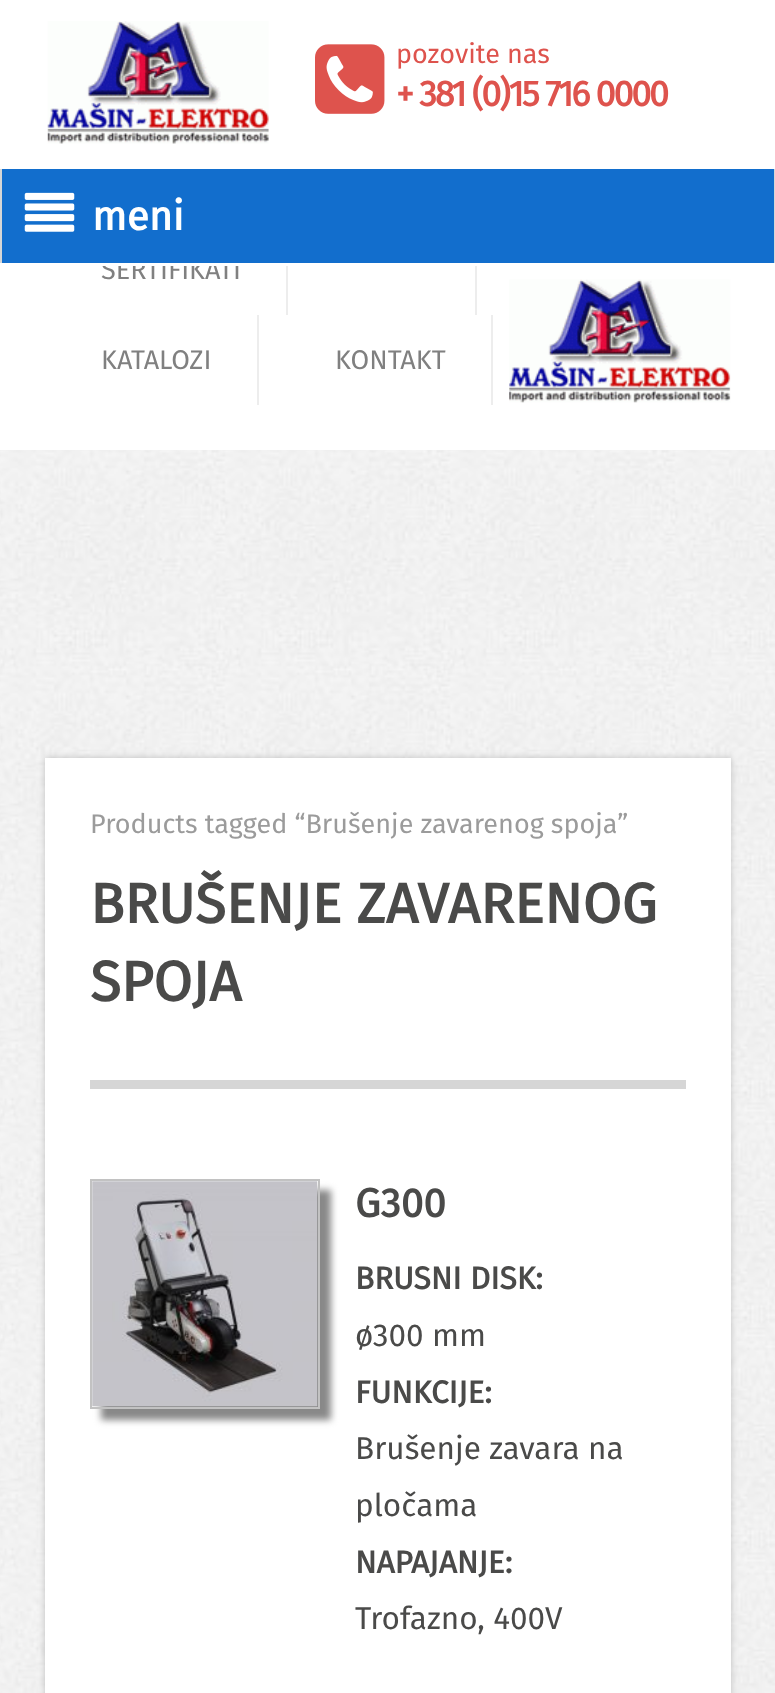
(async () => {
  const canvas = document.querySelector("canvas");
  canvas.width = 775;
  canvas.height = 1693;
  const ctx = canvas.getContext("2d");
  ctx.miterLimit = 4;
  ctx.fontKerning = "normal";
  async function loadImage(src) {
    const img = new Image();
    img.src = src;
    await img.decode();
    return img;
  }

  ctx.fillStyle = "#ffffff";
  ctx.fillRect(0, 0, 775, 1693);
  ctx.drawImage(await loadImage("img/1.png"), 0, 450, 775, 1243);
  ctx.drawImage(await loadImage("img/2.png"), 47, 21, 222, 123);
  ctx.drawImage(await loadImage("img/3.png"), 315, 44, 70, 70);
  ctx.fillStyle = "#d6d6d6";
  ctx.fillRect(774, 169, 1, 94);
  ctx.fillRect(0, 169, 2, 94);
  ctx.fillStyle = "rgba(0, 0, 0, 0.2)";
  ctx.filter = "blur(3.5px)";
  ctx.beginPath();
  ctx.rect(45, 758, 686, 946);
  ctx.fill();
  ctx.filter = "none";
  ctx.fillStyle = "#ffffff";
  ctx.fillRect(45, 758, 686, 935);
  ctx.fillStyle = "#d6d6d6";
  ctx.fillRect(90, 1080, 596, 9);
  ctx.fillStyle = "#888888";
  ctx.filter = "blur(3.5px)";
  ctx.beginPath();
  ctx.rect(101, 1190, 230, 230);
  ctx.fill();
  ctx.filter = "none";
  ctx.strokeStyle = "#c2c2c2";
  ctx.lineWidth = 2;
  ctx.strokeRect(91, 1180, 228, 228);
  ctx.drawImage(await loadImage("img/5.png"), 92, 1181, 226, 226);
  for (const [x, y, w, h, color] of [
    [286, 266, 2, 49, "#ededed"],
    [475, 266, 2, 49, "#ededed"],
    [257, 315, 2, 90, "#ededed"],
    [491, 315, 2, 90, "#ededed"],
  ]) {
    ctx.fillStyle = color;
    ctx.fillRect(x, y, w, h);
  }
  ctx.drawImage(await loadImage("img/6.png"), 509, 279, 222, 124);
  ctx.font = "27px Fira Sans";
  ctx.fillStyle = "#de534d";
  ctx.fillText("pozovite nas", 396, 63);
  ctx.letterSpacing = "-2.25px";
  ctx.font = "bold 36px Fira Sans";
  ctx.fillText("+ 381 (0)15 716 0000", 396, 106);
  ctx.letterSpacing = "0px";
  ctx.font = "27px Fira Sans";
  ctx.fillStyle = "#9b9b9b";
  ctx.fillText("Products tagged “Brušenje zavarenog spoja”", 90, 833);
  ctx.font = "bold 56.25px Fira Sans";
  ctx.fillStyle = "#4a4a49";
  ctx.fillText("BRUŠENJE ZAVARENOG", 90, 923);
  ctx.fillText("SPOJA", 90, 1001);
  ctx.font = "bold 40.5px Fira Sans";
  ctx.fillText("G300", 355, 1217);
  ctx.font = "bold 31.5px Fira Sans";
  ctx.fillText("BRUSNI DISK:", 355, 1289);
  ctx.font = "31.5px Fira Sans";
  ctx.fillText("ø300 mm", 355, 1346);
  ctx.font = "bold 31.5px Fira Sans";
  ctx.fillText("FUNKCIJE:", 355, 1403);
  ctx.font = "31.5px Fira Sans";
  ctx.fillText("Brušenje zavara na", 355, 1459);
  ctx.fillText("pločama", 355, 1516);
  ctx.font = "bold 31.5px Fira Sans";
  ctx.fillText("NAPAJANJE:", 355, 1573);
  ctx.font = "31.5px Fira Sans";
  ctx.fillText("Trofazno, 400V", 355, 1629);
  ctx.font = "27px Fira Sans";
  ctx.fillStyle = "#808080";
  ctx.fillText("SERTIFIKATI", 101, 279);
  ctx.fillStyle = "#ffffff";
  ctx.fillRect(102, 260, 137, 6);
  ctx.fillStyle = "#126ecd";
  ctx.fillRect(2, 169, 772, 94);
  ctx.drawImage(await loadImage("img/4.png"), 24, 192, 51, 40);
  ctx.font = "bold 40.5px Fira Sans";
  ctx.fillStyle = "#ffffff";
  ctx.fillText("meni", 92, 230);
  ctx.font = "27px Fira Sans";
  ctx.fillStyle = "#808080";
  ctx.fillText("KATALOZI", 101, 369);
  ctx.fillText("KONTAKT", 335, 369);
})();
